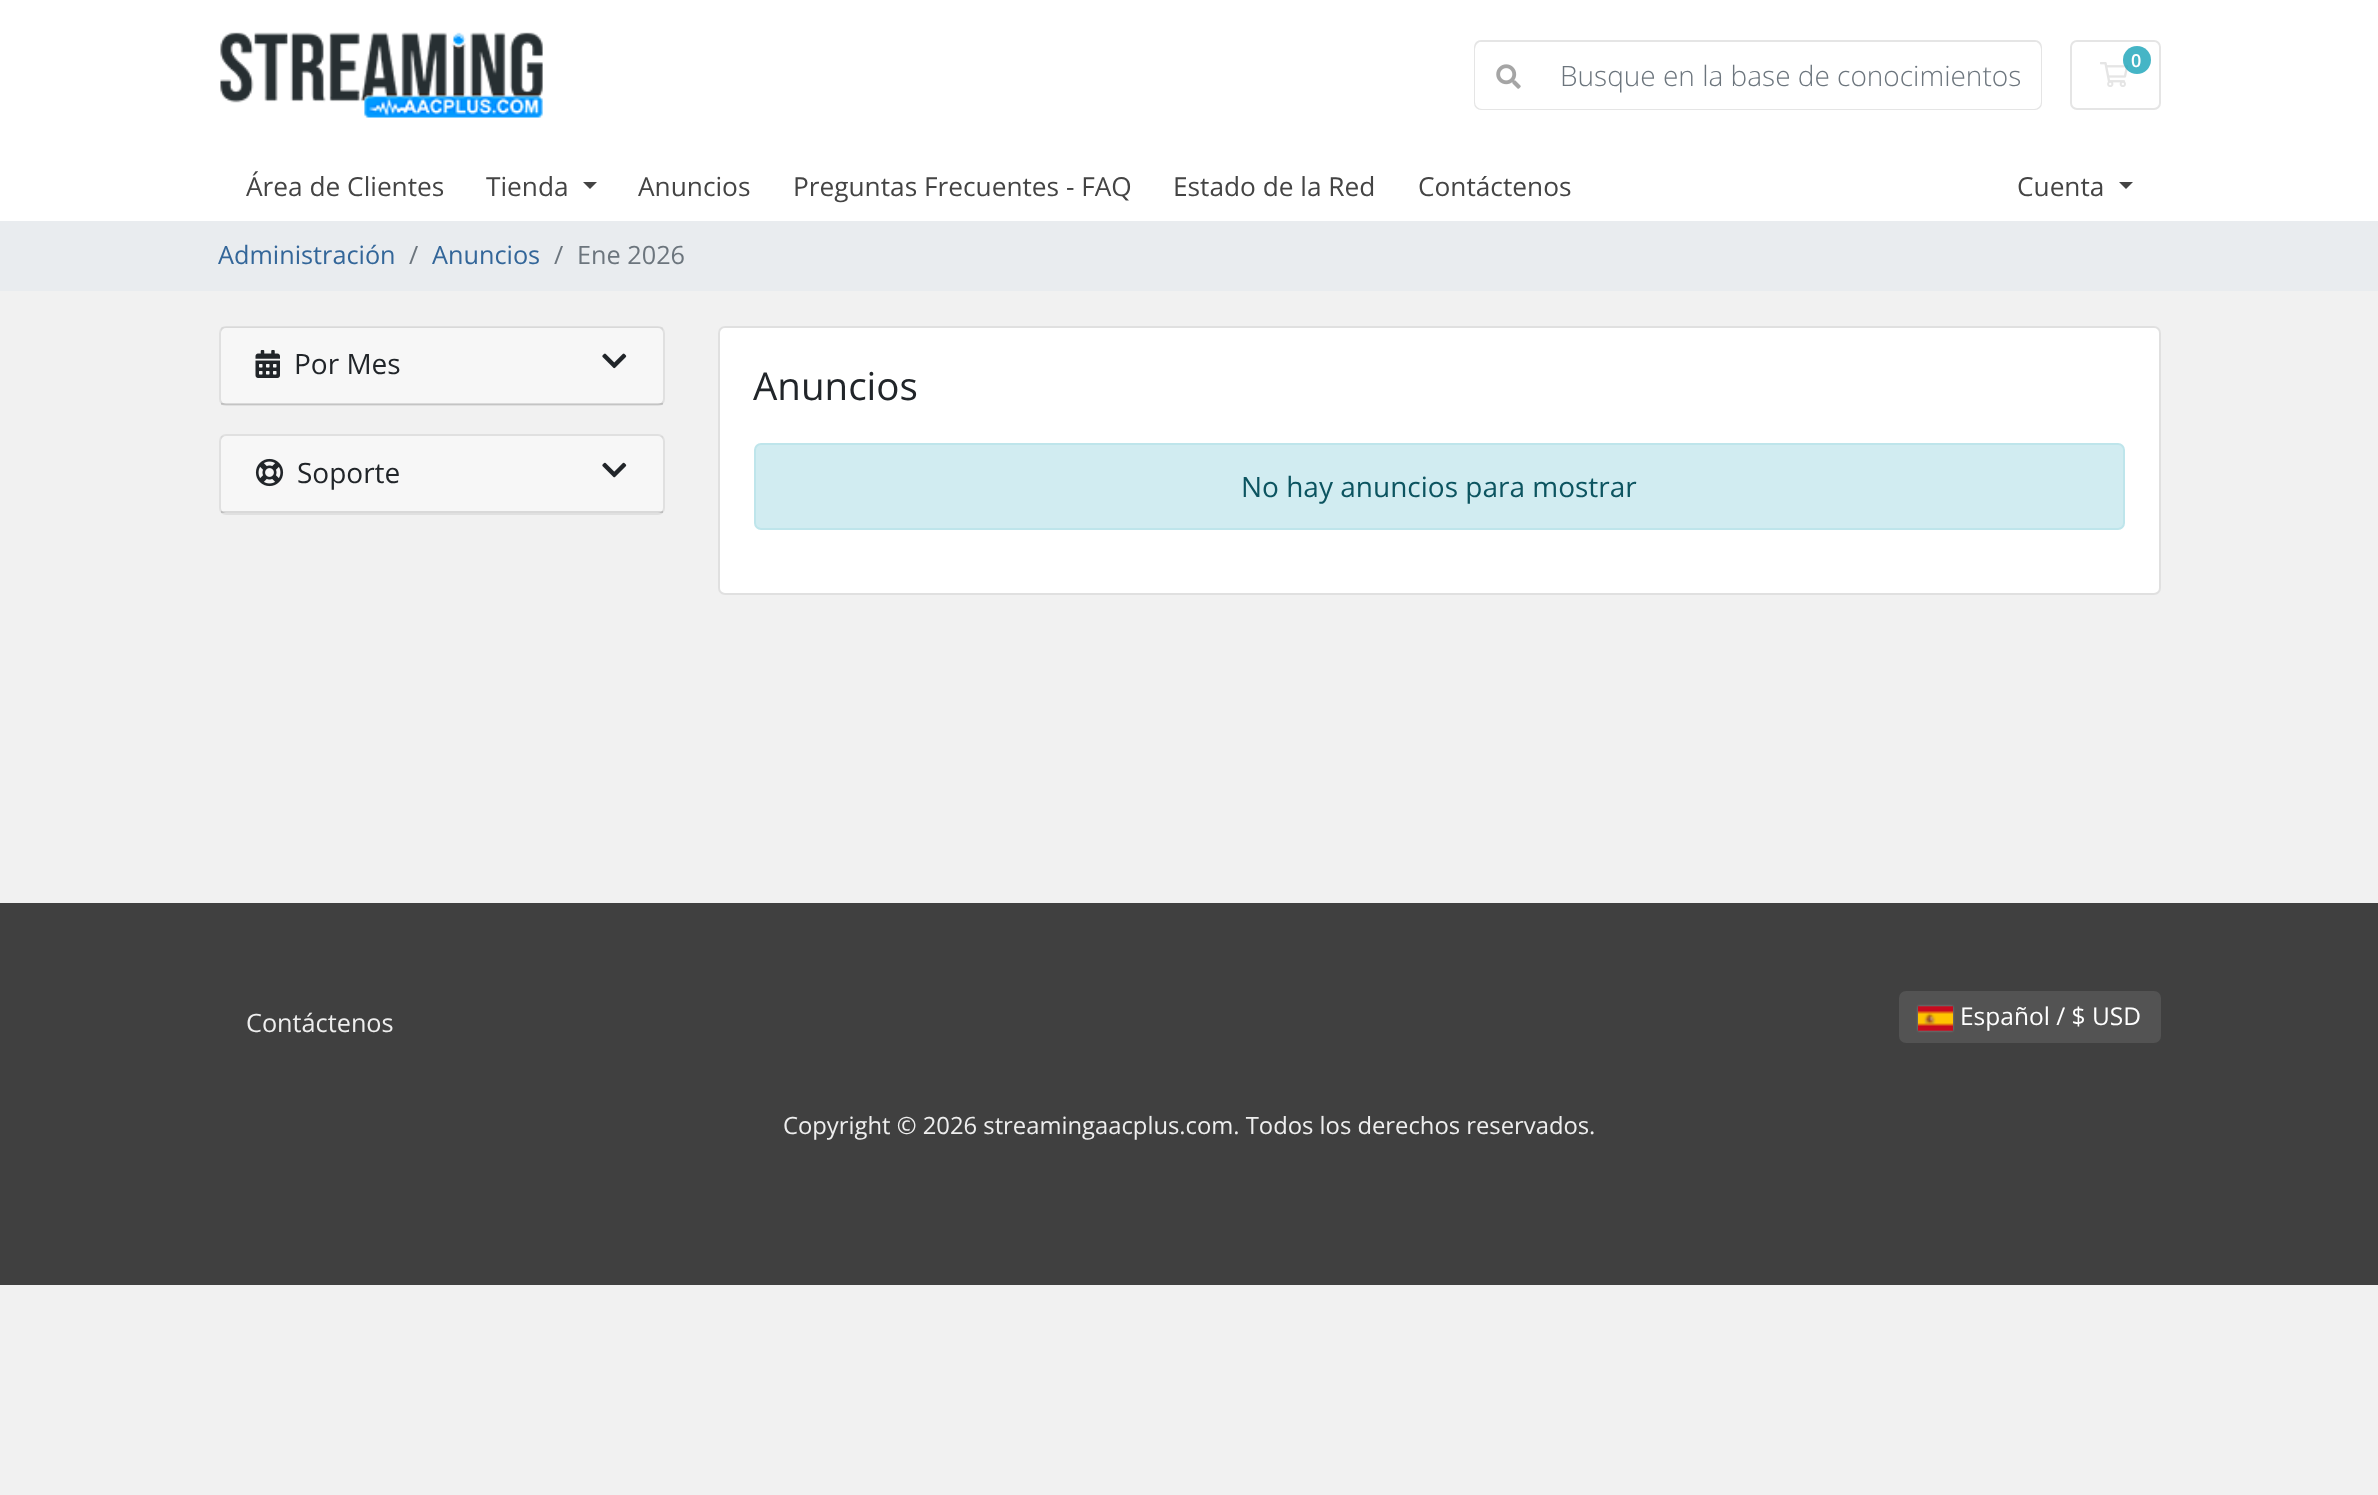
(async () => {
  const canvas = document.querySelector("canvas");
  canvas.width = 2378;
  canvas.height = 1495;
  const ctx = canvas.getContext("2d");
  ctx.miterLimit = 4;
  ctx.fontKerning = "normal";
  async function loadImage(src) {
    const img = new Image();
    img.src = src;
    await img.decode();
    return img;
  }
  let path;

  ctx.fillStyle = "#f1f1f1";
  ctx.fillRect(0, 0, 2378, 1495);
  ctx.fillStyle = "#ffffff";
  ctx.fillRect(0, 0, 2378, 221);
  ctx.drawImage(await loadImage("img/1.png"), 220, 32, 323, 86);
  ctx.beginPath();
  ctx.roundRect(2071, 41, 89, 68, 6);
  ctx.strokeStyle = "#e5e5e5";
  ctx.lineWidth = 2;
  ctx.stroke();
  ctx.drawImage(await loadImage("img/2.png"), 2100, 62, 29, 25);
  ctx.fillStyle = "rgba(23, 162, 184, 0.8)";
  ctx.beginPath();
  ctx.arc(2137, 60, 14, 0, Math.PI * 2);
  ctx.fill();
  ctx.beginPath();
  ctx.roundRect(1475, 41, 566, 68, 6);
  ctx.stroke();
  ctx.fillStyle = "#ffffff";
  ctx.beginPath();
  ctx.roundRect(1540, 42, 501, 67, [0, 7, 7, 0]);
  ctx.fill();
  ctx.beginPath();
  ctx.roundRect(1475, 42, 67, 67, [7, 0, 0, 7]);
  ctx.fill();
  ctx.drawImage(await loadImage("img/3.png"), 1496, 64, 25, 25);
  ctx.fillStyle = "#444444";
  path = new Path2D("M583 182H597L590 189Z");
  ctx.fill(path);
  path = new Path2D("M2119 182H2133L2126 189Z");
  ctx.fill(path);
  ctx.fillStyle = "#e9ecef";
  ctx.fillRect(0, 221, 2378, 70);
  ctx.fillStyle = "#ffffff";
  ctx.beginPath();
  ctx.roundRect(219, 326, 446, 80, 7);
  ctx.fill();
  ctx.beginPath();
  ctx.roundRect(220, 327, 444, 78, 6);
  ctx.strokeStyle = "rgba(0, 0, 0, 0.12)";
  ctx.stroke();
  ctx.fillStyle = "rgba(0, 0, 0, 0.03)";
  ctx.fillRect(221, 327, 442, 77);
  ctx.fillStyle = "rgba(0, 0, 0, 0.12)";
  ctx.fillRect(221, 403, 442, 2);
  ctx.drawImage(await loadImage("img/4.png"), 255, 350, 25, 28);
  ctx.drawImage(await loadImage("img/5.png"), 602, 353, 25, 16);
  ctx.fillStyle = "#ffffff";
  ctx.beginPath();
  ctx.roundRect(219, 434, 446, 81, 7);
  ctx.fill();
  ctx.beginPath();
  ctx.roundRect(220, 435, 444, 79, 6);
  ctx.stroke();
  ctx.fillStyle = "rgba(0, 0, 0, 0.03)";
  ctx.fillRect(221, 436, 442, 77);
  ctx.fillStyle = "rgba(0, 0, 0, 0.12)";
  ctx.fillRect(221, 511, 442, 2);
  ctx.drawImage(await loadImage("img/6.png"), 255, 458, 29, 29);
  ctx.drawImage(await loadImage("img/7.png"), 602, 462, 25, 16);
  ctx.fillStyle = "#ffffff";
  ctx.beginPath();
  ctx.roundRect(718, 326, 1443, 269, 7);
  ctx.fill();
  ctx.beginPath();
  ctx.roundRect(719, 327, 1441, 267, 6);
  ctx.stroke();
  ctx.fillStyle = "#d1ecf1";
  ctx.beginPath();
  ctx.roundRect(755, 444, 1369, 85, 6);
  ctx.fill();
  ctx.strokeStyle = "#bee5eb";
  ctx.stroke();
  ctx.fillStyle = "#404040";
  ctx.fillRect(0, 903, 2378, 382);
  ctx.fillStyle = "#535353";
  ctx.beginPath();
  ctx.roundRect(1899, 991, 262, 52, 7);
  ctx.fill();
  ctx.fillStyle = "#888888";
  ctx.filter = "blur(1px)";
  ctx.beginPath();
  ctx.rect(1918, 1006, 35, 25);
  ctx.fill();
  ctx.filter = "none";
  ctx.drawImage(await loadImage("img/8.png"), 1918, 1006, 35, 25);
  ctx.font = "600 18px Open Sans";
  ctx.fillStyle = "#ffffff";
  ctx.fillText("0", 2131, 67);
  ctx.font = "300 28px Open Sans";
  ctx.fillStyle = "#6c757d";
  ctx.fillText("Busque en la base de conocimientos", 1560, 86);
  ctx.font = "26.25px Open Sans";
  ctx.fillStyle = "#444444";
  for (const [text, x, y] of [
    ["Área de Clientes", 246, 196],
    ["Tienda", 486, 196],
    ["Anuncios", 638, 196],
    ["Preguntas Frecuentes - FAQ", 793, 196],
    ["Estado de la Red", 1173, 196],
    ["Contáctenos", 1418, 196],
    ["Cuenta", 2017, 196],
  ]) {
    ctx.fillText(text, x, y);
  }
  ctx.font = "25.25px Open Sans";
  ctx.fillStyle = "#336699";
  ctx.fillText("Administración", 218, 264);
  ctx.fillStyle = "#6c757d";
  ctx.fillText("/", 409, 264);
  ctx.fillStyle = "#336699";
  ctx.fillText("Anuncios", 432, 264);
  ctx.fillStyle = "#6c757d";
  ctx.fillText("/", 554, 264);
  ctx.fillText("Ene 2026", 577, 264);
  ctx.font = "28px Open Sans";
  ctx.fillStyle = "#212529";
  ctx.fillText("Por Mes", 294, 374);
  ctx.fillText("Soporte", 297, 483);
  ctx.font = "38.5px Open Sans";
  ctx.fillText("Anuncios", 753, 400);
  ctx.font = "28px Open Sans";
  ctx.fillStyle = "#0c5460";
  ctx.fillText("No hay anuncios para mostrar", 1241, 497);
  ctx.font = "25.25px Open Sans";
  ctx.fillStyle = "#eeeeee";
  ctx.fillText("Contáctenos", 246, 1032);
  ctx.font = "24.5px Open Sans";
  ctx.fillStyle = "#ffffff";
  ctx.fillText("Español / $ USD", 1960, 1025);
  ctx.font = "23.8px Open Sans";
  ctx.fillStyle = "#eeeeee";
  ctx.fillText("Copyright © 2026 streamingaacplus.com. Todos los derechos reservados.", 783, 1134);
})();
